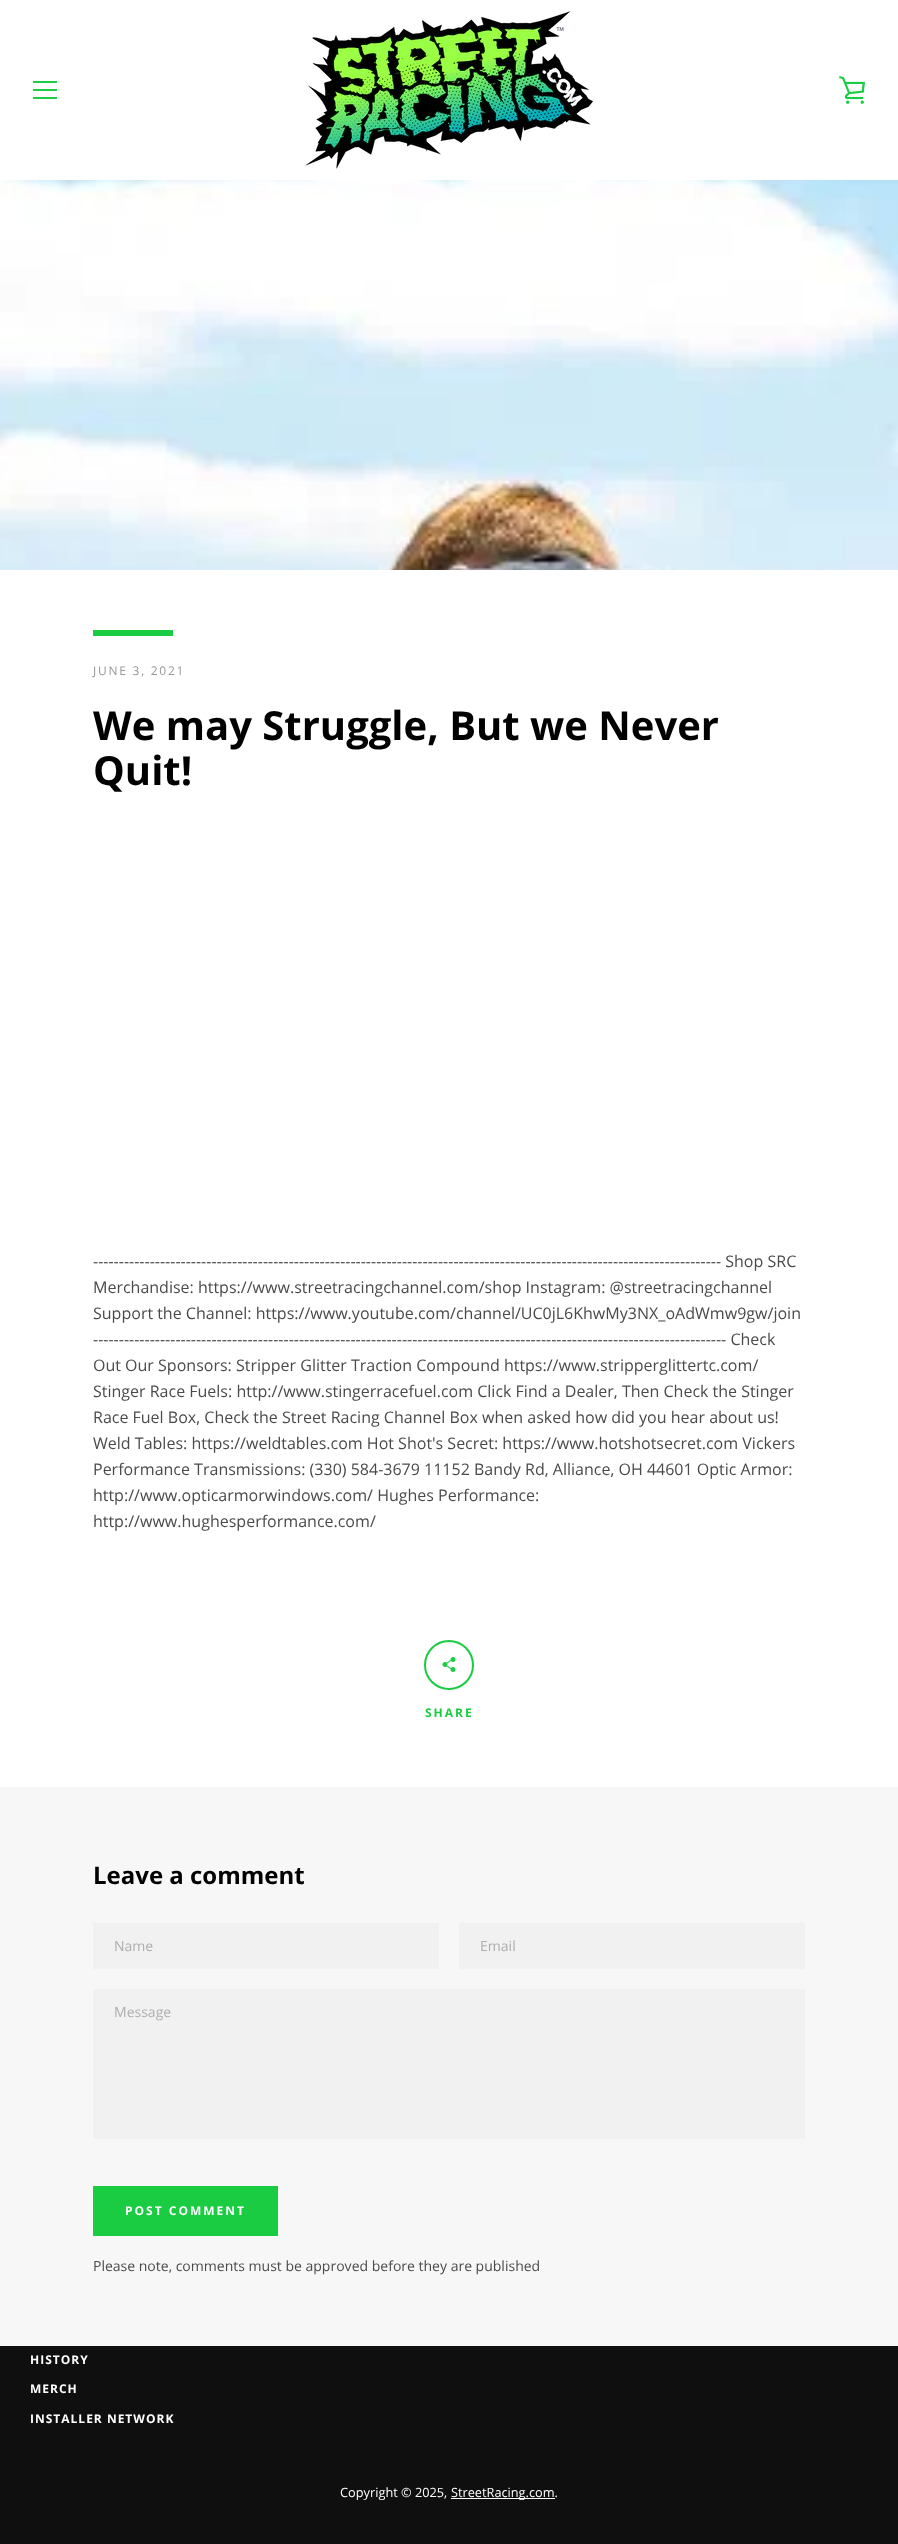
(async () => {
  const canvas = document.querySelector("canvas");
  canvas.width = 898;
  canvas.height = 2544;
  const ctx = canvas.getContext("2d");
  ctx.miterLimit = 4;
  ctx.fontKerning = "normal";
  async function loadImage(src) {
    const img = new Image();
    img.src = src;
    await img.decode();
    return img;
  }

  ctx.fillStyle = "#ffffff";
  ctx.fillRect(0, 0, 898, 2544);
  for (const [x, y, w, h, color] of [
    [33, 81, 24, 2, "#1acc41"],
    [33, 89, 24, 2, "#1acc41"],
    [33, 97, 24, 2, "#1acc41"],
  ]) {
    ctx.fillStyle = color;
    ctx.fillRect(x, y, w, h);
  }
  ctx.drawImage(await loadImage("img/1.png"), 305, 11, 288, 158);
  ctx.drawImage(await loadImage("img/2.png"), 839, 76, 26, 28);
  ctx.drawImage(await loadImage("img/3.png"), 0, 180, 898, 390);
  ctx.fillRect(93, 630, 80, 6);
  ctx.beginPath();
  ctx.arc(449, 1665, 24, 0, Math.PI * 2);
  ctx.strokeStyle = "#1acc41";
  ctx.lineWidth = 2;
  ctx.stroke();
  ctx.drawImage(await loadImage("img/4.png"), 442, 1657, 14, 15);
  for (const [x, y, w, h, color] of [
    [0, 1787, 898, 559, "#f7f7f7"],
    [93, 1923, 346, 46, "#f1f1f1"],
    [459, 1923, 346, 46, "#f1f1f1"],
    [93, 1989, 712, 150, "#f1f1f1"],
    [93, 2186, 185, 50, "#1acc41"],
    [0, 2346, 898, 198, "#0e0f0e"],
    [451, 2498, 104, 1, "#ffffff"],
  ]) {
    ctx.fillStyle = color;
    ctx.fillRect(x, y, w, h);
  }
  ctx.letterSpacing = "1.75px";
  ctx.font = "12px Open Sans";
  ctx.fillStyle = "#979797";
  ctx.fillText("JUNE 3, 2021", 93, 675);
  ctx.letterSpacing = "0px";
  ctx.font = "bold 40px Open Sans";
  ctx.fillStyle = "#000000";
  ctx.fillText("We may Struggle, But we Never", 93, 740);
  ctx.fillText("Quit!", 93, 785);
  ctx.font = "16px Open Sans";
  ctx.fillStyle = "#4a4a4a";
  for (const [text, x, y] of [
    ["-------------------------------------------------------------------------------------------------------------------------- Shop SRC", 93, 1267],
    ["Merchandise: https://www.streetracingchannel.com/shop Instagram: @streetracingchannel", 93, 1293],
    ["Support the Channel: https://www.youtube.com/channel/UC0jL6KhwMy3NX_oAdWmw9gw/join", 93, 1319],
    ["--------------------------------------------------------------------------------------------------------------------------- Check", 93, 1345],
    ["Out Our Sponsors: Stripper Glitter Traction Compound https://www.stripperglittertc.com/", 93, 1371],
    ["Stinger Race Fuels: http://www.stingerracefuel.com Click Find a Dealer, Then Check the Stinger", 93, 1397],
    ["Race Fuel Box, Check the Street Racing Channel Box when asked how did you hear about us!", 93, 1423],
    ["Weld Tables: https://weldtables.com Hot Shot's Secret: https://www.hotshotsecret.com Vickers", 93, 1449],
    ["Performance Transmissions: (330) 584-3679 11152 Bandy Rd, Alliance, OH 44601 Optic Armor:", 93, 1475],
    ["http://www.opticarmorwindows.com/ Hughes Performance:", 93, 1501],
    ["http://www.hughesperformance.com/", 93, 1527],
  ]) {
    ctx.fillText(text, x, y);
  }
  ctx.letterSpacing = "2px";
  ctx.font = "bold 12px Open Sans";
  ctx.fillStyle = "#1acc41";
  ctx.fillText("SHARE", 425, 1717);
  ctx.letterSpacing = "0px";
  ctx.font = "bold 24px Open Sans";
  ctx.fillStyle = "#000000";
  ctx.fillText("Leave a comment", 93, 1884);
  ctx.font = "14px Open Sans";
  ctx.fillStyle = "#aeaeae";
  for (const [text, x, y] of [
    ["Name", 114, 1951],
    ["Email", 480, 1951],
    ["Message", 114, 2017],
  ]) {
    ctx.fillText(text, x, y);
  }
  ctx.letterSpacing = "2px";
  ctx.font = "bold 12px Open Sans";
  ctx.fillStyle = "#ffffff";
  ctx.fillText("POST COMMENT", 125, 2215);
  ctx.letterSpacing = "0px";
  ctx.font = "14px Open Sans";
  ctx.fillStyle = "#4a4a4a";
  ctx.fillText("Please note, comments must be approved before they are published", 93, 2271);
  ctx.letterSpacing = "1px";
  ctx.font = "bold 12px Open Sans";
  ctx.fillStyle = "#ffffff";
  for (const [text, x, y] of [
    ["HISTORY", 30, 2364],
    ["MERCH", 30, 2393],
    ["INSTALLER NETWORK", 30, 2423],
  ]) {
    ctx.fillText(text, x, y);
  }
  ctx.letterSpacing = "0px";
  ctx.font = "12.75px Open Sans";
  ctx.fillText("Copyright © 2025,", 340, 2497);
  ctx.fillText("StreetRacing.com.", 451, 2497);
})();
